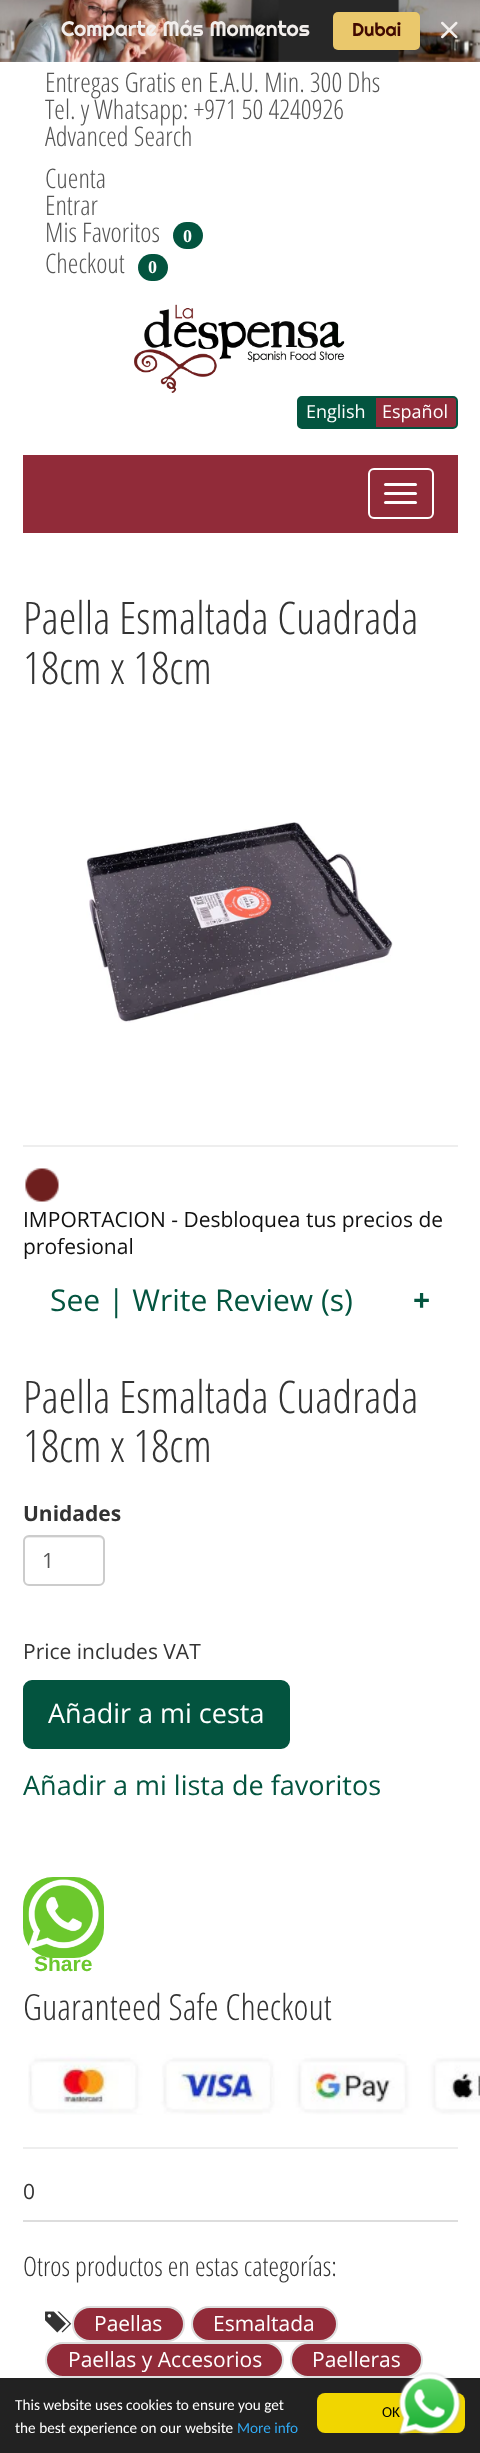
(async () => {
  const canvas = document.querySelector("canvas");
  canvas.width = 480;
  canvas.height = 2453;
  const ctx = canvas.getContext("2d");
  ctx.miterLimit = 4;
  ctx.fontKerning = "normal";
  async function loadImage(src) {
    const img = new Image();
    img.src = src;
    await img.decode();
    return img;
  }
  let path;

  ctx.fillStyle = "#ffffff";
  ctx.fillRect(0, 0, 480, 2453);
  ctx.drawImage(await loadImage("img/1.png"), 0, 0, 480, 62);
  ctx.fillStyle = "#eac86c";
  ctx.beginPath();
  ctx.roundRect(333, 12, 87, 38, 5);
  ctx.fill();
  ctx.drawImage(await loadImage("img/2.png"), 441, 21, 17, 18);
  ctx.fillStyle = "#03543f";
  ctx.beginPath();
  ctx.roundRect(173, 222, 30, 27, 13.5);
  ctx.fill();
  ctx.beginPath();
  ctx.roundRect(138, 254, 30, 27, 13.5);
  ctx.fill();
  ctx.drawImage(await loadImage("img/3.png"), 134, 304, 211, 89);
  ctx.beginPath();
  ctx.roundRect(298, 397, 76, 31, [4, 0, 0, 4]);
  ctx.fill();
  ctx.strokeStyle = "#03543f";
  ctx.lineWidth = 2;
  ctx.stroke();
  ctx.fillStyle = "#912b39";
  ctx.beginPath();
  ctx.roundRect(375, 397, 82, 31, [0, 4, 4, 0]);
  ctx.fill();
  ctx.stroke();
  ctx.fillRect(23, 455, 435, 78);
  ctx.beginPath();
  ctx.roundRect(369, 469, 64, 49, 5);
  ctx.strokeStyle = "#ffffff";
  ctx.stroke();
  ctx.fillStyle = "#ffffff";
  ctx.beginPath();
  ctx.roundRect(384, 483, 33, 3, 1.5);
  ctx.fill();
  ctx.beginPath();
  ctx.roundRect(384, 492, 33, 3, 1.5);
  ctx.fill();
  ctx.beginPath();
  ctx.roundRect(384, 501, 33, 3, 1.5);
  ctx.fill();
  ctx.drawImage(await loadImage("img/4.png"), 86, 822, 307, 201);
  ctx.fillStyle = "#eeeeee";
  ctx.fillRect(23, 1145, 435, 2);
  ctx.drawImage(await loadImage("img/5.png"), 25, 1168, 34, 34);
  ctx.fillStyle = "#ececec";
  path = new Path2D("M28 1538H99C101 1538 104 1540 104 1542C104 1533 93 1536 87 1536H41C35 1536 24 1533 24 1542C24 1540 26 1538 28 1538Z");
  ctx.fill(path);
  ctx.beginPath();
  ctx.roundRect(24, 1536, 80, 49, 5);
  ctx.strokeStyle = "#cccccc";
  ctx.stroke();
  ctx.fillStyle = "#03543f";
  ctx.beginPath();
  ctx.roundRect(24, 1681, 265, 67, 8);
  ctx.fill();
  ctx.strokeStyle = "#03543f";
  ctx.stroke();
  ctx.fillStyle = "#6cc82d";
  ctx.beginPath();
  ctx.roundRect(23, 1877, 81, 81, 30);
  ctx.fill();
  ctx.drawImage(await loadImage("img/6.png"), 28, 1879, 71, 70);
  ctx.drawImage(await loadImage("img/7.png"), 28, 2054, 452, 61);
  ctx.fillStyle = "#eeeeee";
  ctx.fillRect(23, 2147, 435, 2);
  ctx.fillStyle = "#dddddd";
  ctx.fillRect(23, 2220, 435, 2);
  ctx.drawImage(await loadImage("img/8.png"), 45, 2311, 27, 22);
  ctx.fillStyle = "#912b39";
  ctx.beginPath();
  ctx.roundRect(73, 2307, 111, 34, 17);
  ctx.fill();
  ctx.strokeStyle = "#dddddd";
  ctx.stroke();
  ctx.beginPath();
  ctx.roundRect(192, 2307, 145, 34, 17);
  ctx.fill();
  ctx.stroke();
  ctx.beginPath();
  ctx.roundRect(46, 2343, 237, 34, 17);
  ctx.fill();
  ctx.stroke();
  ctx.beginPath();
  ctx.roundRect(291, 2343, 131, 34, 17);
  ctx.fill();
  ctx.stroke();
  ctx.fillStyle = "#222222";
  ctx.fillRect(0, 2378, 480, 75);
  ctx.fillStyle = "#f1d600";
  ctx.beginPath();
  ctx.roundRect(317, 2393, 148, 40, 8);
  ctx.fill();
  ctx.font = "21px Righteous";
  ctx.fillStyle = "#f2eeec";
  ctx.fillText("Comparte Más Momentos", 61, 36);
  ctx.font = "18.5px Righteous";
  ctx.fillStyle = "#410a01";
  ctx.fillText("Dubai", 352, 36);
  ctx.font = "300 27px Open Sans Condensed";
  ctx.fillStyle = "#555555";
  for (const [text, x, y] of [
    ["Entregas Gratis en E.A.U. Min. 300 Dhs", 45, 92],
    ["Tel. y Whatsapp: +971 50 4240926", 45, 119],
    ["Advanced Search", 45, 146],
    ["Cuenta", 45, 188],
    ["Entrar", 45, 215],
    ["Mis Favoritos", 45, 242],
  ]) {
    ctx.fillText(text, x, y);
  }
  ctx.font = "bold 18px Liberation Serif";
  ctx.fillStyle = "#ffffff";
  ctx.fillText("0", 183, 242);
  ctx.font = "300 27px Open Sans Condensed";
  ctx.fillStyle = "#555555";
  ctx.fillText("Checkout", 45, 273);
  ctx.font = "bold 18px Liberation Serif";
  ctx.fillStyle = "#ffffff";
  ctx.fillText("0", 148, 273);
  ctx.font = "18px Open Sans";
  ctx.fillText("English", 306, 418);
  ctx.fillText("Español", 382, 418);
  ctx.font = "300 45px Open Sans Condensed";
  ctx.fillStyle = "#333333";
  ctx.fillText("Paella Esmaltada Cuadrada", 23, 634);
  ctx.fillText("18cm x 18cm", 23, 684);
  ctx.font = "21px Open Sans";
  ctx.fillStyle = "#101010";
  ctx.fillText("IMPORTACION - Desbloquea tus precios de", 23, 1227);
  ctx.fillText("profesional", 23, 1254);
  ctx.font = "30px Open Sans";
  ctx.fillStyle = "#03543f";
  ctx.fillText("See | Write Review (s)", 50, 1311);
  ctx.font = "bold 30px Open Sans";
  ctx.fillText("+", 413, 1311);
  ctx.font = "300 45px Open Sans Condensed";
  ctx.fillStyle = "#333333";
  ctx.fillText("Paella Esmaltada Cuadrada", 23, 1413);
  ctx.fillText("18cm x 18cm", 23, 1462);
  ctx.font = "bold 21px Open Sans";
  ctx.fillText("Unidades", 23, 1521);
  ctx.font = "21px Open Sans";
  ctx.fillStyle = "#555555";
  ctx.fillText("1", 42, 1568);
  ctx.fillStyle = "#333333";
  ctx.fillText("Price includes VAT", 23, 1659);
  ctx.font = "27px Open Sans";
  ctx.fillStyle = "#ffffff";
  ctx.fillText("Añadir a mi cesta", 48, 1723);
  ctx.fillStyle = "#03543f";
  ctx.fillText("Añadir a mi lista de favoritos", 23, 1795);
  ctx.font = "bold 21px Liberation Sans";
  ctx.fillStyle = "#6cc82d";
  ctx.fillText("Share", 34, 1971);
  ctx.font = "300 36px Open Sans Condensed";
  ctx.fillStyle = "#333333";
  ctx.fillText("Guaranteed Safe Checkout", 23, 2020);
  ctx.font = "21px Open Sans";
  ctx.fillText("0", 23, 2199);
  ctx.font = "300 27px Open Sans Condensed";
  ctx.fillText("Otros productos en estas categorías:", 23, 2276);
  ctx.font = "21px Open Sans";
  ctx.fillStyle = "#ffffff";
  for (const [text, x, y] of [
    ["Paellas", 94, 2331],
    ["Esmaltada", 213, 2331],
    ["Paellas y Accesorios", 68, 2367],
    ["Paelleras", 312, 2367],
  ]) {
    ctx.fillText(text, x, y);
  }
  ctx.font = "15.25px Carlito";
  ctx.fillText("This website uses cookies to ensure you get", 15, 2410);
  ctx.fillText("the best experience on our website", 15, 2433);
  ctx.fillStyle = "#31a8f0";
  ctx.fillText("More info", 237, 2433);
  ctx.fillStyle = "#000000";
  ctx.fillText("OK", 382, 2417);
  ctx.drawImage(await loadImage("img/9.png"), 397, 2372, 65, 64);
})();
